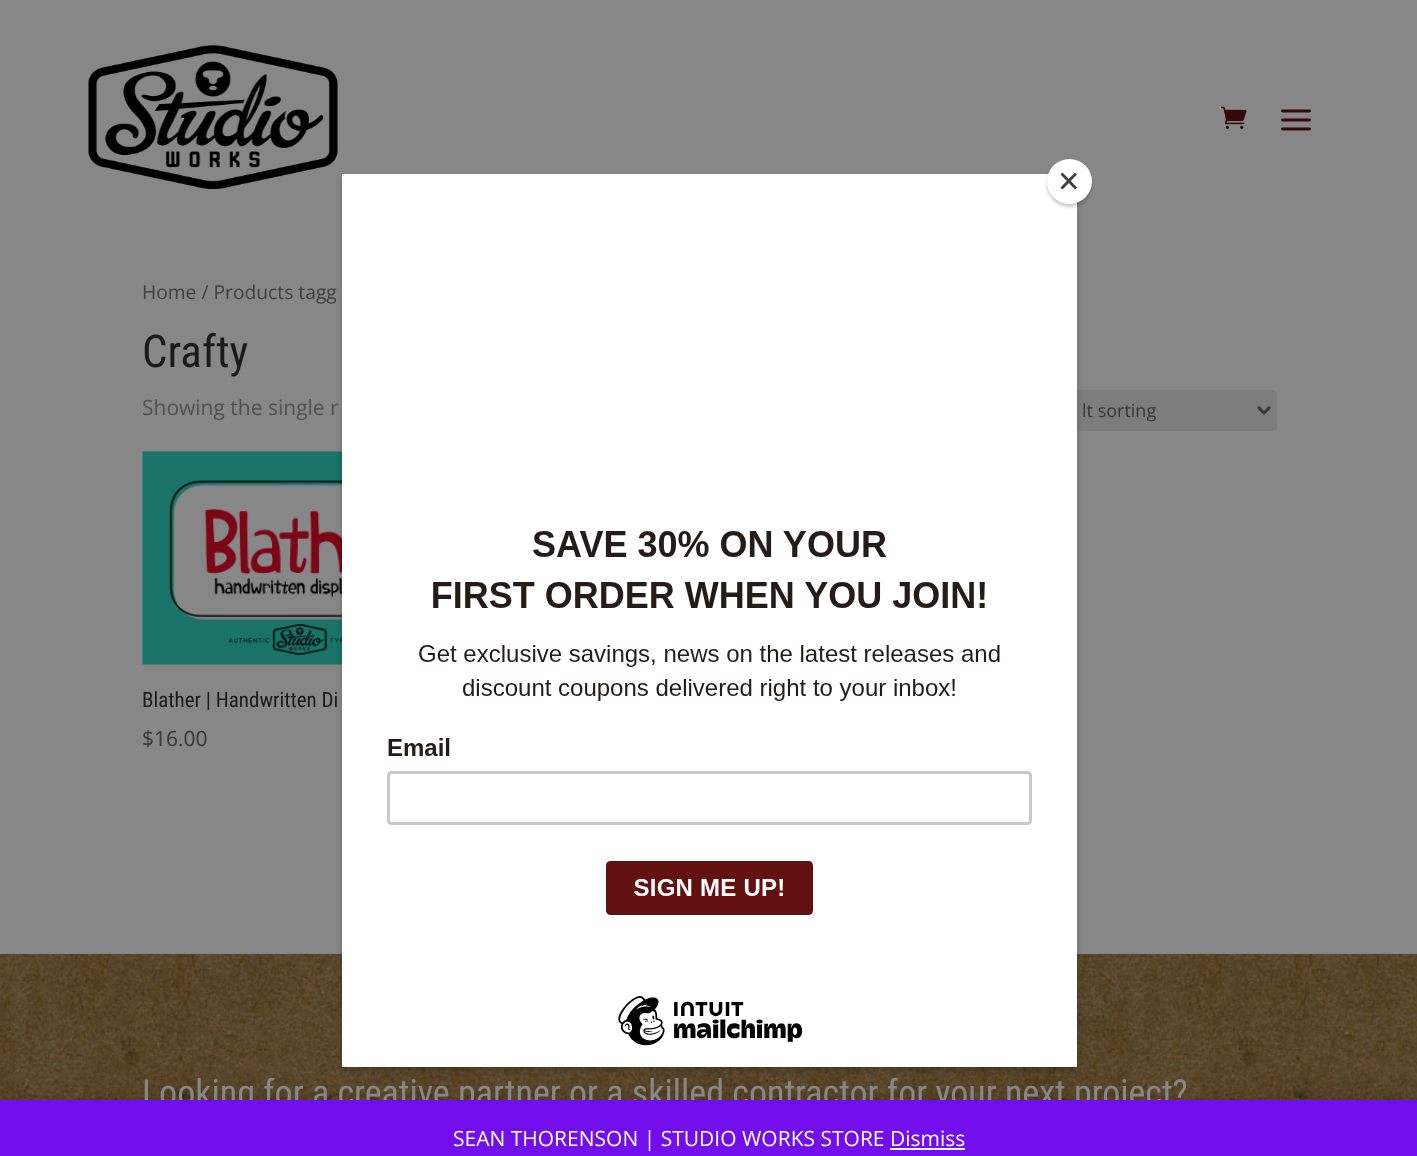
(async () => {
  const canvas = document.querySelector("canvas");
  canvas.width = 1417;
  canvas.height = 1156;
  const ctx = canvas.getContext("2d");
  ctx.miterLimit = 4;
  ctx.fontKerning = "normal";
  async function loadImage(src) {
    const img = new Image();
    img.src = src;
    await img.decode();
    return img;
  }
  let path;

  ctx.fillStyle = "#878787";
  ctx.fillRect(0, 0, 1417, 1156);
  ctx.drawImage(await loadImage("img/2.png"), 88, 45, 250, 144);
  ctx.fillStyle = "#7d7d7d";
  ctx.beginPath();
  ctx.roundRect(1014, 390, 263, 41, 5);
  ctx.fill();
  ctx.drawImage(await loadImage("img/5.png"), 142, 451, 200, 214);
  ctx.drawImage(await loadImage("img/6.png"), 0, 954, 1417, 146);
  ctx.fillStyle = "rgba(0, 0, 0, 0.2)";
  ctx.filter = "blur(3px)";
  ctx.beginPath();
  ctx.rect(342, 177, 735, 893);
  ctx.fill();
  ctx.filter = "none";
  ctx.drawImage(await loadImage("img/1.png"), 342, 174, 735, 893);
  ctx.filter = "blur(1.5px)";
  ctx.beginPath();
  ctx.roundRect(1047, 162, 45, 45, 22.5);
  ctx.fill();
  ctx.filter = "none";
  ctx.fillStyle = "#ffffff";
  ctx.beginPath();
  ctx.arc(1069.5, 181.5, 22.5, 0, Math.PI * 2);
  ctx.fill();
  ctx.fillStyle = "#414141";
  path = new Path2D("M1075 172.5L1077 174.5L1062.5 189.5L1060.5 187.5Z");
  ctx.fill(path);
  path = new Path2D("M1060.5 174.5L1062.5 172.5L1077 187.5L1075 189.5Z");
  ctx.fill(path);
  ctx.drawImage(await loadImage("img/3.png"), 1221, 106, 26, 23);
  ctx.drawImage(await loadImage("img/4.png"), 1281, 109, 30, 22);
  path = new Path2D("M1258 407L1264 413L1270 407");
  ctx.strokeStyle = "#363636";
  ctx.lineWidth = 3;
  ctx.stroke(path);
  ctx.fillStyle = "rgba(0, 0, 0, 0.2)";
  ctx.filter = "blur(10.5px)";
  ctx.beginPath();
  ctx.rect(0, 1101, 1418, 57);
  ctx.fill();
  ctx.filter = "none";
  ctx.font = "19.25px Open Sans";
  ctx.fillStyle = "#3f3f3f";
  ctx.fillText("Home / Products tagg", 142, 299);
  ctx.font = "45px Roboto Condensed";
  ctx.fillStyle = "#1b1b1b";
  ctx.fillText("Crafty", 142, 367);
  ctx.font = "21px Open Sans";
  ctx.fillStyle = "#515151";
  ctx.fillText("Showing the single r", 142, 415);
  ctx.font = "18px Open Sans";
  ctx.fillStyle = "#363636";
  ctx.fillText("lt sorting", 1082, 417);
  ctx.font = "21px Roboto Condensed";
  ctx.fillStyle = "#1b1b1b";
  ctx.fillText("Blather | Handwritten Di", 142, 707);
  ctx.font = "21px Open Sans";
  ctx.fillStyle = "#363636";
  ctx.fillText("$16.00", 142, 746);
  ctx.font = "36px Roboto Condensed";
  ctx.fillStyle = "#878787";
  ctx.fillText("Looking for a creative partner or a skilled contractor for your next project?", 142, 1105);
  ctx.fillStyle = "#720eec";
  ctx.fillRect(0, 1100, 1417, 56);
  ctx.font = "21px Open Sans";
  ctx.fillStyle = "#fcfbfe";
  ctx.fillText("SEAN THORENSON | STUDIO WORKS STORE Dismiss", 453, 1146);
  ctx.fillRect(890, 1148, 75, 2);
})();
